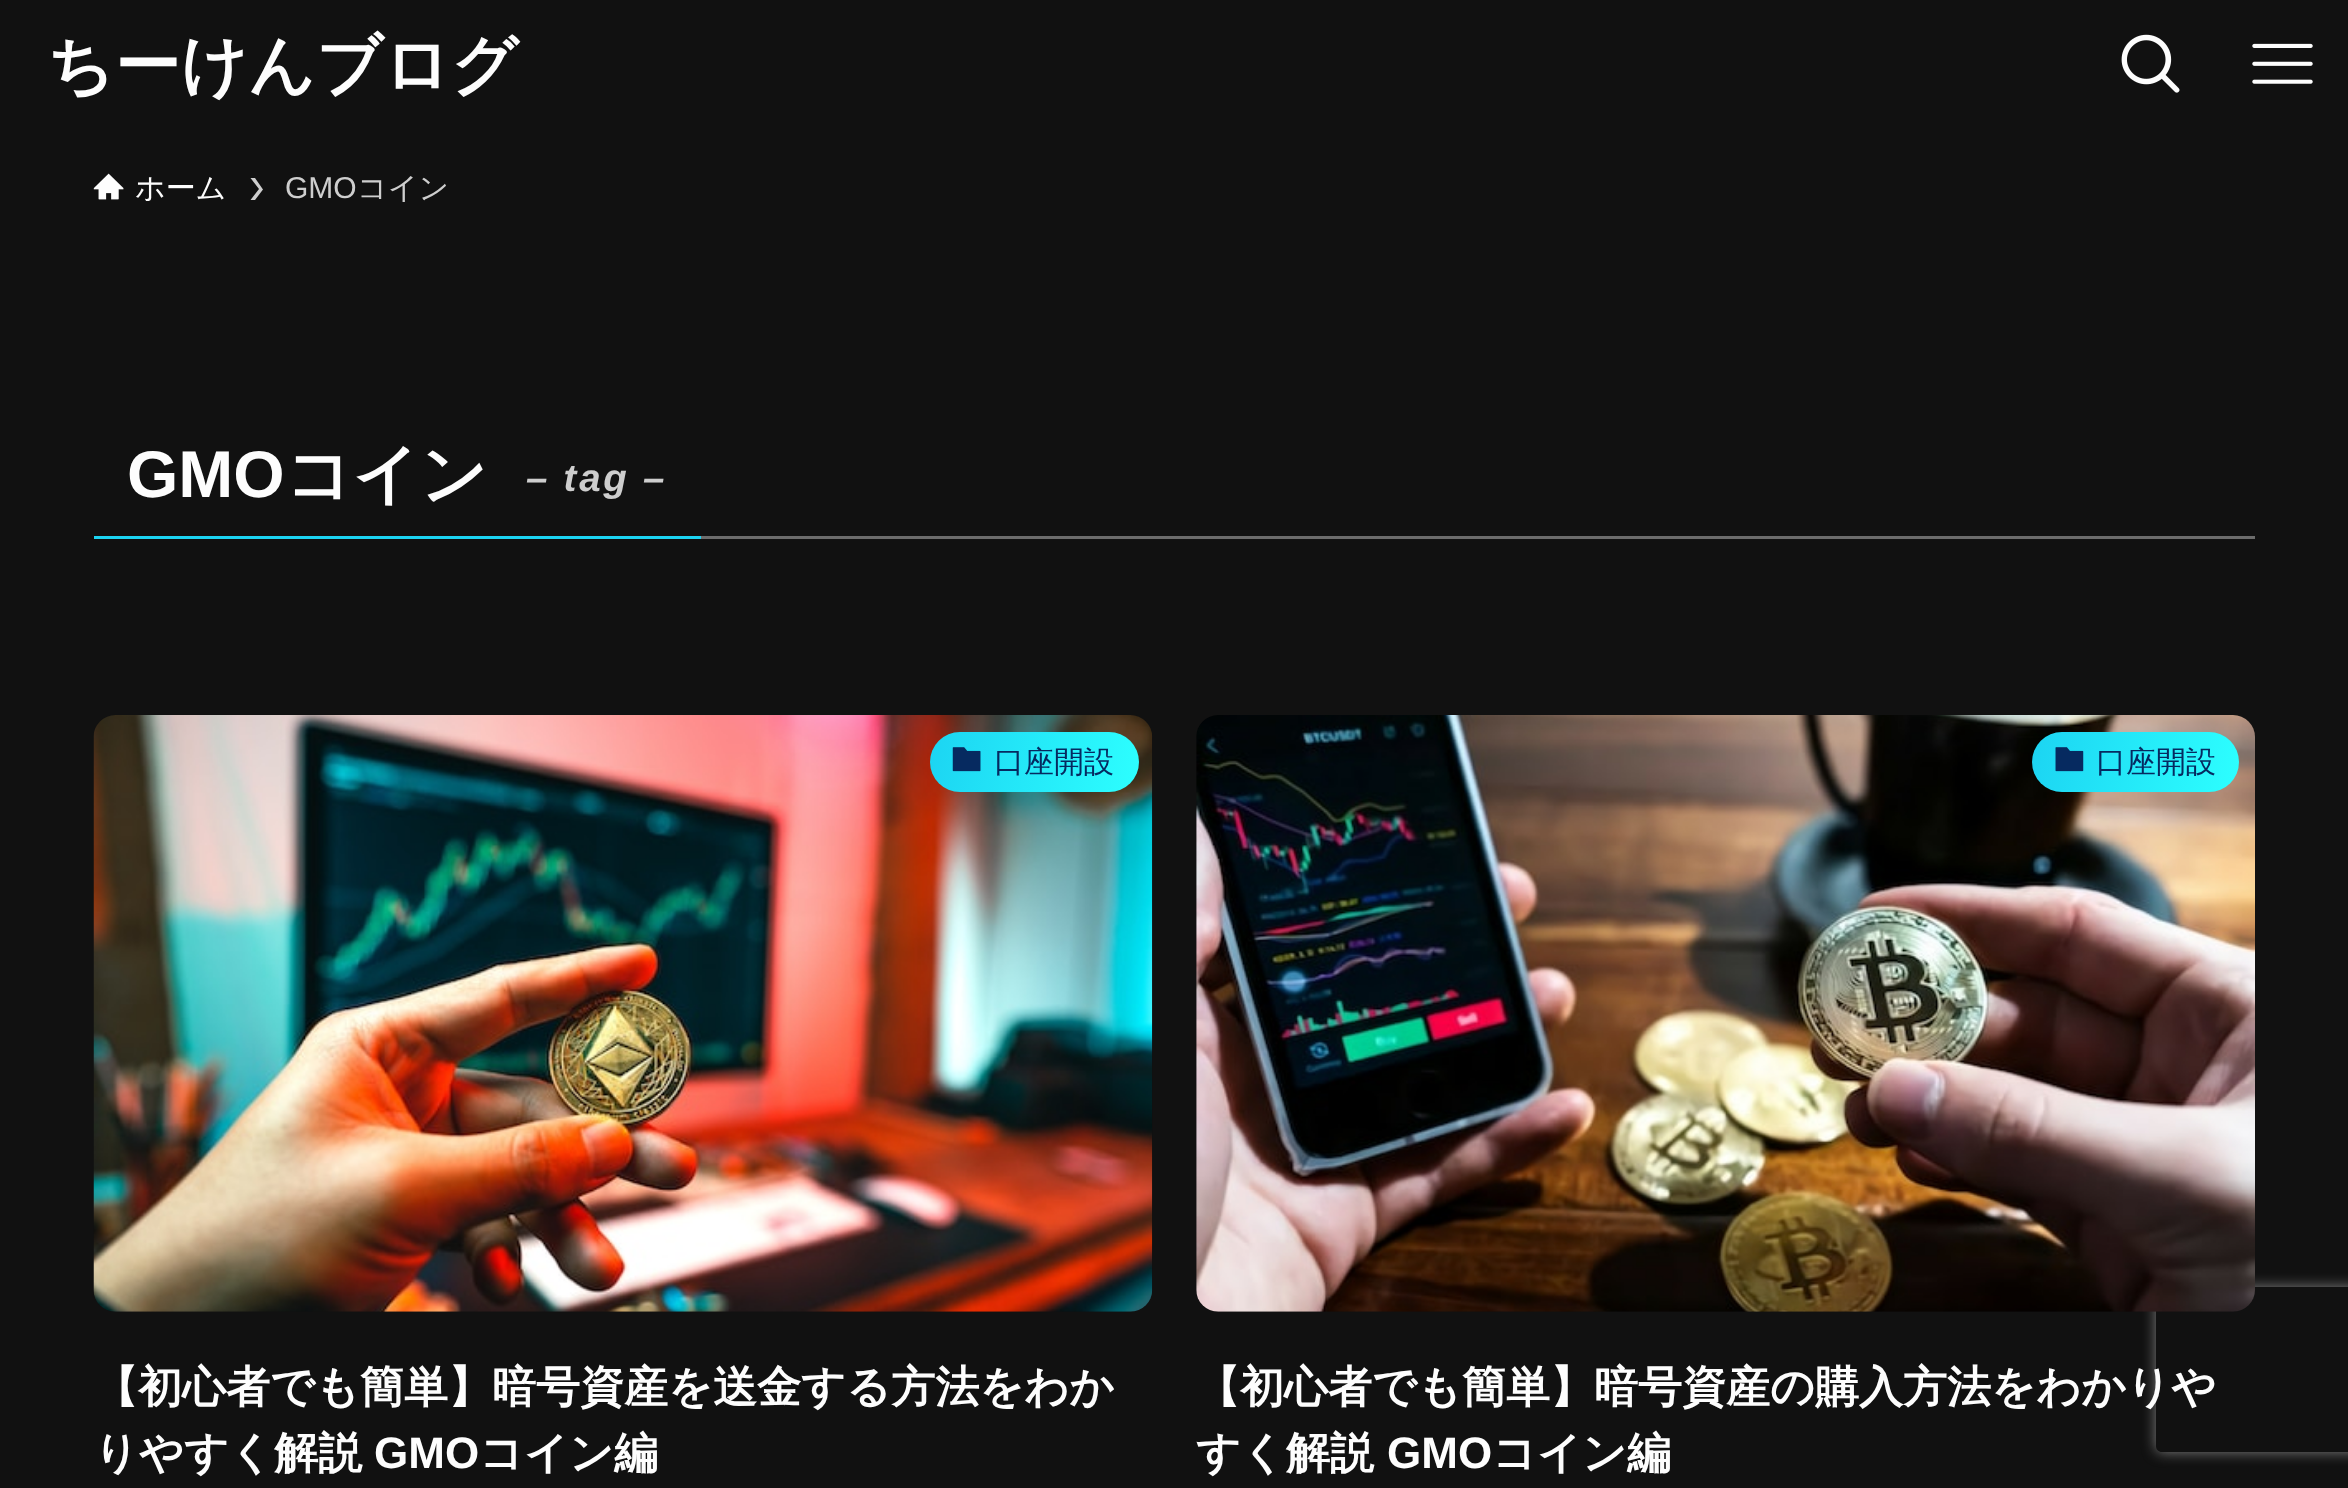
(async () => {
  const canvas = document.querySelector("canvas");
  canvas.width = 2348;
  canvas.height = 1488;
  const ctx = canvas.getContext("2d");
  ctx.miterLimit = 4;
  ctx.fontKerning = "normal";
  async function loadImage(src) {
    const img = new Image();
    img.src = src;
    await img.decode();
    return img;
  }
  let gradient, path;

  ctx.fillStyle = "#111111";
  ctx.fillRect(0, 0, 2348, 1488);
  ctx.drawImage(await loadImage("img/1.png"), 2121, 34, 59, 59);
  ctx.drawImage(await loadImage("img/2.png"), 2252, 43, 61, 41);
  ctx.drawImage(await loadImage("img/3.png"), 93, 173, 31, 27);
  ctx.fillStyle = "#cecece";
  path = new Path2D("M255 178H250.5L259 189L250.5 200H255L263 189.5Z");
  ctx.fill(path);
  ctx.fillStyle = "#6c6c6c";
  ctx.fillRect(701, 536, 1554, 3);
  ctx.fillStyle = "#1cd4f2";
  ctx.fillRect(94, 536, 607, 3);
  ctx.drawImage(await loadImage("img/4.png"), 93, 715, 1060, 597);
  gradient = ctx.createLinearGradient(927, 743, 1141, 781);
  gradient.addColorStop(0, "#1cd4f2");
  gradient.addColorStop(1, "#2dffff");
  ctx.fillStyle = gradient;
  ctx.beginPath();
  ctx.roundRect(930, 732, 209, 60, 30);
  ctx.fill();
  ctx.drawImage(await loadImage("img/5.png"), 952, 747, 29, 25);
  ctx.save();
  path = new Path2D("M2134 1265H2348V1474H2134ZM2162 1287H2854C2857.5 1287 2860 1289.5 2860 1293V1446C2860 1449.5 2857.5 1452 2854 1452H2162C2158.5 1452 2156 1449.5 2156 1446V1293C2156 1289.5 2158.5 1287 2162 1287Z");
  ctx.clip(path, "evenodd");
  ctx.fillStyle = "#808080";
  ctx.filter = "blur(7px)";
  ctx.beginPath();
  ctx.roundRect(2156, 1287, 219, 165, 6);
  ctx.fill();
  ctx.filter = "none";
  ctx.restore();
  ctx.drawImage(await loadImage("img/6.png"), 1196, 715, 1059, 597);
  gradient = ctx.createLinearGradient(2030, 743, 2241, 780);
  gradient.addColorStop(0, "#1cd4f2");
  gradient.addColorStop(1, "#2dffff");
  ctx.fillStyle = gradient;
  ctx.beginPath();
  ctx.roundRect(2032, 732, 207, 60, 30);
  ctx.fill();
  ctx.drawImage(await loadImage("img/7.png"), 2055, 747, 29, 25);
  ctx.font = "bold 66px WenQuanYi Zen Hei";
  ctx.fillStyle = "#fdfdfd";
  ctx.fillText("ちーけんブログ", 47, 88);
  ctx.font = "500 30px WenQuanYi Zen Hei";
  ctx.fillText("ホーム", 135, 198);
  ctx.font = "30px Liberation Sans";
  ctx.fillStyle = "#cecece";
  ctx.fillText("GMO", 285, 198);
  ctx.font = "500 30px WenQuanYi Zen Hei";
  ctx.fillText("コイン", 357, 198);
  ctx.font = "bold 66px Liberation Sans";
  ctx.fillStyle = "#fdfdfd";
  ctx.fillText("GMO", 127, 497);
  ctx.font = "bold 66px WenQuanYi Zen Hei";
  ctx.fillText("コイン", 285, 497);
  ctx.letterSpacing = "2.75px";
  ctx.font = "italic bold 38.5px Liberation Sans";
  ctx.fillStyle = "#cecece";
  ctx.fillText("– tag –", 526, 491);
  ctx.letterSpacing = "0px";
  ctx.font = "500 30px WenQuanYi Zen Hei";
  ctx.fillStyle = "#062a60";
  ctx.fillText("口座開設", 994, 772);
  ctx.font = "bold 44px WenQuanYi Zen Hei";
  ctx.fillStyle = "#fdfdfd";
  ctx.fillText("【初心者でも簡単】暗号資産を送金する方法をわか", 94, 1402);
  ctx.fillText("りやすく解説", 94, 1468);
  ctx.font = "bold 44px Liberation Sans";
  ctx.fillText("GMO", 374, 1468);
  ctx.font = "bold 44px WenQuanYi Zen Hei";
  ctx.fillText("コイン編", 479, 1468);
  ctx.font = "500 30px WenQuanYi Zen Hei";
  ctx.fillStyle = "#062a60";
  ctx.fillText("口座開設", 2096, 772);
  ctx.font = "bold 44px WenQuanYi Zen Hei";
  ctx.fillStyle = "#fdfdfd";
  ctx.fillText("【初心者でも簡単】暗号資産の購入方法をわかりや", 1196, 1402);
  ctx.fillText("すく解説", 1196, 1468);
  ctx.font = "bold 44px Liberation Sans";
  ctx.fillText("GMO", 1387, 1468);
  ctx.font = "bold 44px WenQuanYi Zen Hei";
  ctx.fillText("コイン編", 1492, 1468);
})();
